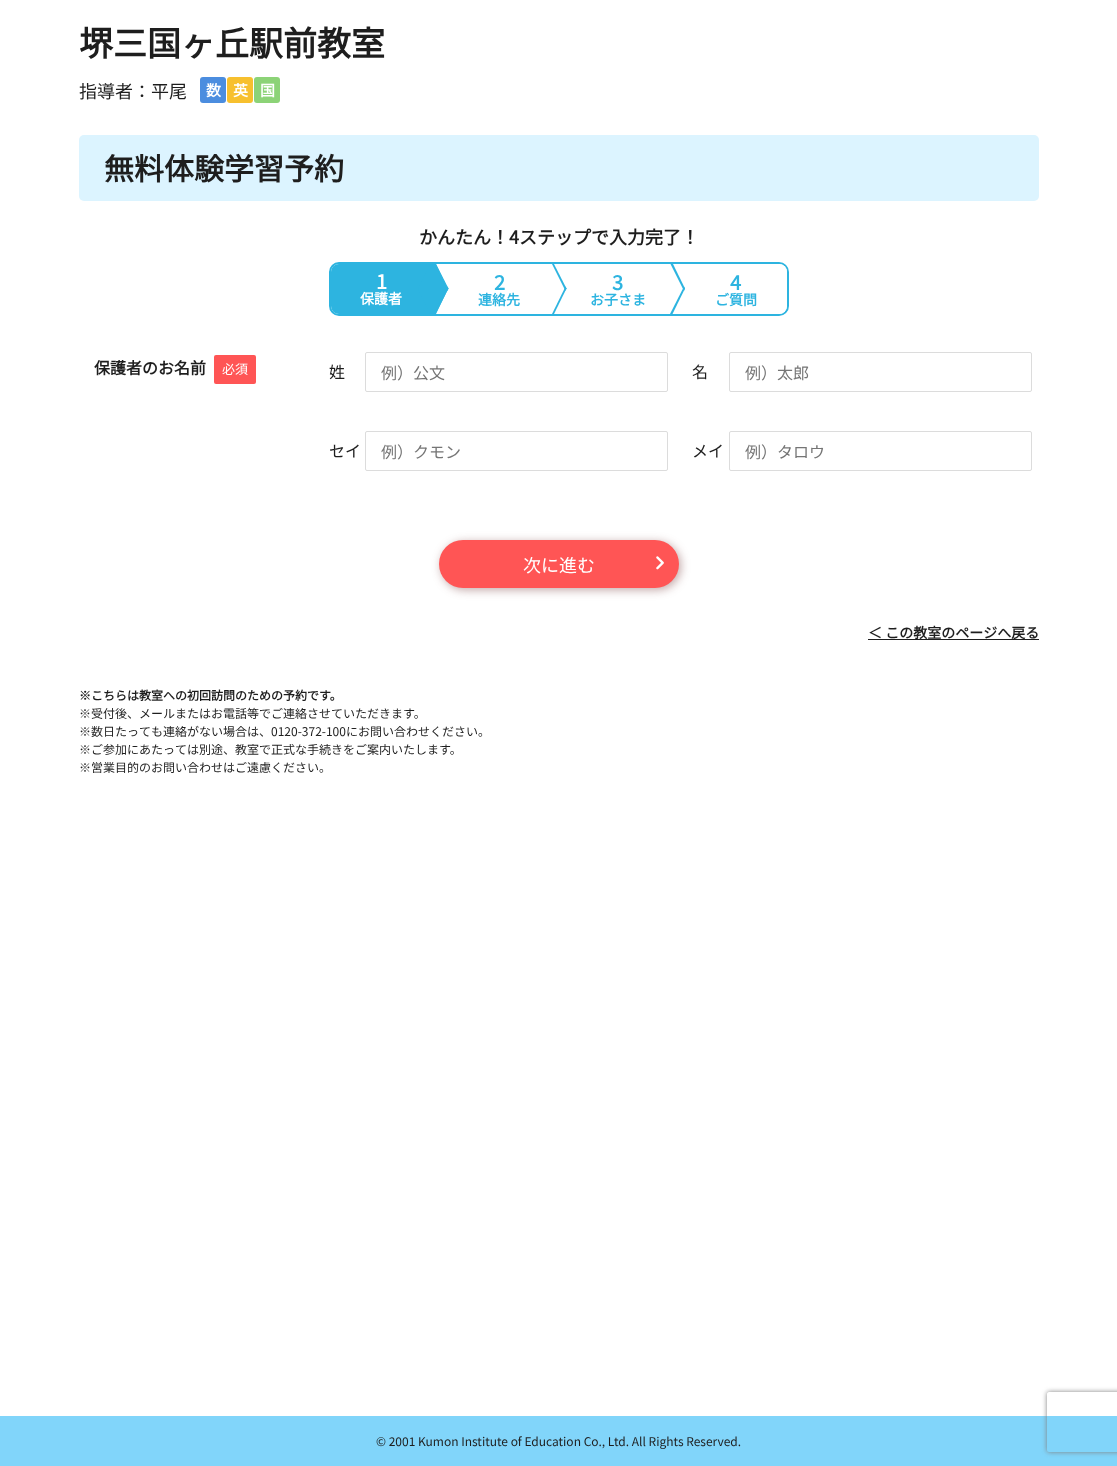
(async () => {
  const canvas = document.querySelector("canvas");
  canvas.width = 1117;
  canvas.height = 1466;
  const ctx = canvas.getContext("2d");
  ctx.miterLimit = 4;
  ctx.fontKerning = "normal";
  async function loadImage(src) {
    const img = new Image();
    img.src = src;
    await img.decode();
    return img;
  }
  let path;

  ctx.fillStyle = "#ffffff";
  ctx.fillRect(0, 0, 1117, 1466);
  ctx.fillStyle = "#4b8ddf";
  ctx.beginPath();
  ctx.roundRect(200, 77, 26, 26, 3);
  ctx.fill();
  ctx.fillStyle = "#f7c02e";
  ctx.beginPath();
  ctx.roundRect(227, 77, 26, 26, 3);
  ctx.fill();
  ctx.fillStyle = "#8cd377";
  ctx.beginPath();
  ctx.roundRect(254, 77, 26, 26, 3);
  ctx.fill();
  ctx.fillStyle = "#dcf4ff";
  ctx.beginPath();
  ctx.roundRect(79, 135, 960, 66, 5);
  ctx.fill();
  ctx.beginPath();
  ctx.roundRect(330, 263, 458, 52, 9);
  ctx.strokeStyle = "#2db4e0";
  ctx.lineWidth = 2;
  ctx.stroke();
  ctx.fillStyle = "#2db4e0";
  ctx.beginPath();
  ctx.roundRect(331, 264, 101, 50, [8, 0, 0, 8]);
  ctx.fill();
  path = new Path2D("M430 314L418 289L430 264H436L448 289L436 314Z");
  ctx.fill(path);
  path = new Path2D("M436 264L448.5 288.5L447.5 291L434 264Z");
  ctx.fill(path);
  path = new Path2D("M447.5 286.5L448.5 288.5L435.5 314H433.5Z");
  ctx.fill(path);
  path = new Path2D("M554 264L566.5 288.5L565.5 291L552 264Z");
  ctx.fill(path);
  path = new Path2D("M565.5 286.5L566.5 288.5L554 314H552Z");
  ctx.fill(path);
  ctx.fillStyle = "#ffffff";
  ctx.beginPath();
  ctx.roundRect(668, 264, 119, 50, [0, 8, 8, 0]);
  ctx.fill();
  ctx.fillStyle = "#2db4e0";
  path = new Path2D("M673 264L685 288.5L684 291L670.5 264Z");
  ctx.fill(path);
  path = new Path2D("M684 286.5L685 288.5L672.5 314H670Z");
  ctx.fill(path);
  ctx.fillStyle = "#ff5555";
  ctx.beginPath();
  ctx.roundRect(214, 355, 42, 29, 2);
  ctx.fill();
  ctx.beginPath();
  ctx.roundRect(365.5, 352.5, 302, 39, 1.5);
  ctx.strokeStyle = "#dcdcdc";
  ctx.lineWidth = 1;
  ctx.stroke();
  ctx.beginPath();
  ctx.roundRect(729.5, 352.5, 302, 39, 1.5);
  ctx.stroke();
  ctx.beginPath();
  ctx.roundRect(365.5, 431.5, 302, 39, 1.5);
  ctx.stroke();
  ctx.beginPath();
  ctx.roundRect(729.5, 431.5, 302, 39, 1.5);
  ctx.stroke();
  ctx.fillStyle = "rgba(102, 34, 34, 0.4)";
  ctx.filter = "blur(5px)";
  ctx.beginPath();
  ctx.roundRect(441, 542, 240, 48, 24);
  ctx.fill();
  ctx.filter = "none";
  ctx.fillStyle = "#ff5555";
  ctx.beginPath();
  ctx.roundRect(439, 540, 240, 48, 24);
  ctx.fill();
  ctx.drawImage(await loadImage("img/1.png"), 656, 556, 8, 14);
  ctx.fillStyle = "#1e1e1e";
  ctx.fillRect(868, 639, 171, 1);
  ctx.fillStyle = "#81d5fa";
  ctx.fillRect(0, 1416, 1117, 50);
  ctx.save();
  path = new Path2D("M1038 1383H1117V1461H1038ZM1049 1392H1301C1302 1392 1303 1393 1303 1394V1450C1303 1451 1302 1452 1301 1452H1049C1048 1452 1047 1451 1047 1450V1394C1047 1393 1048 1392 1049 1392Z");
  ctx.clip(path, "evenodd");
  ctx.fillStyle = "#808080";
  ctx.filter = "blur(2.5px)";
  ctx.beginPath();
  ctx.roundRect(1047, 1392, 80, 60, 2);
  ctx.fill();
  ctx.filter = "none";
  ctx.restore();
  ctx.font = "bold 34px Noto Sans JP";
  ctx.fillStyle = "#1e1e1e";
  ctx.fillText("堺三国ヶ丘駅前教室", 79, 56);
  ctx.font = "100 18px Noto Sans JP";
  ctx.fillText("指導者：平尾", 79, 98);
  ctx.font = "bold 15px Noto Sans JP";
  ctx.fillStyle = "#ffffff";
  for (const [text, x, y] of [
    ["数", 206, 96],
    ["英", 233, 96],
    ["国", 260, 96],
  ]) {
    ctx.fillText(text, x, y);
  }
  ctx.font = "bold 30px Noto Sans JP";
  ctx.fillStyle = "#1e1e1e";
  ctx.fillText("無料体験学習予約", 104, 180);
  ctx.font = "bold 18px Noto Sans JP";
  ctx.fillText("かんたん！4ステップで入力完了！", 419, 244);
  ctx.font = "bold 20px Noto Sans JP";
  ctx.fillStyle = "#ffffff";
  ctx.fillText("1", 376, 289);
  ctx.font = "bold 14px Noto Sans JP";
  ctx.fillText("保護者", 360, 304);
  ctx.font = "bold 20px Noto Sans JP";
  ctx.fillStyle = "#2db4e0";
  ctx.fillText("2", 494, 290);
  ctx.font = "bold 14px Noto Sans JP";
  ctx.fillText("連絡先", 478, 305);
  ctx.font = "bold 20px Noto Sans JP";
  ctx.fillText("3", 612, 290);
  ctx.font = "bold 14px Noto Sans JP";
  ctx.fillText("お子さま", 590, 305);
  ctx.font = "bold 20px Noto Sans JP";
  ctx.fillText("4", 730, 290);
  ctx.font = "bold 14px Noto Sans JP";
  ctx.fillText("ご質問", 715, 305);
  ctx.font = "bold 16px Noto Sans JP";
  ctx.fillStyle = "#1e1e1e";
  ctx.fillText("保護者のお名前", 94, 374);
  ctx.font = "100 13px Noto Sans JP";
  ctx.fillStyle = "#ffffff";
  ctx.fillText("必須", 222, 374);
  ctx.font = "100 16px Noto Sans JP";
  ctx.fillStyle = "#1e1e1e";
  ctx.fillText("姓", 329, 378);
  ctx.fillStyle = "#757575";
  ctx.fillText("例）公文", 381, 379);
  ctx.fillStyle = "#1e1e1e";
  ctx.fillText("名", 692, 378);
  ctx.fillStyle = "#757575";
  ctx.fillText("例）太郎", 745, 379);
  ctx.fillStyle = "#1e1e1e";
  ctx.fillText("セイ", 329, 457);
  ctx.fillStyle = "#757575";
  ctx.fillText("例）クモン", 381, 458);
  ctx.fillStyle = "#1e1e1e";
  ctx.fillText("メイ", 692, 457);
  ctx.fillStyle = "#757575";
  ctx.fillText("例）タロウ", 745, 458);
  ctx.font = "100 18px Noto Sans JP";
  ctx.fillStyle = "#ffffff";
  ctx.fillText("次に進む", 523, 572);
  ctx.font = "bold 14px Noto Sans JP";
  ctx.fillStyle = "#1e1e1e";
  ctx.fillText("＜ この教室のページへ戻る", 868, 638);
  ctx.font = "bold 12px Noto Sans JP";
  ctx.fillText("※こちらは教室への初回訪問のための予約です。", 79, 700);
  ctx.font = "100 12px Noto Sans JP";
  for (const [text, x, y] of [
    ["※受付後、メールまたはお電話等でご連絡させていただきます。", 79, 718],
    ["※数日たっても連絡がない場合は、0120-372-100にお問い合わせください。", 79, 736],
    ["※ご参加にあたっては別途、教室で正式な手続きをご案内いたします。", 79, 754],
    ["※営業目的のお問い合わせはご遠慮ください。", 79, 772],
    ["© 2001 Kumon Institute of Education Co., Ltd. All Rights Reserved.", 376, 1446],
  ]) {
    ctx.fillText(text, x, y);
  }
})();
